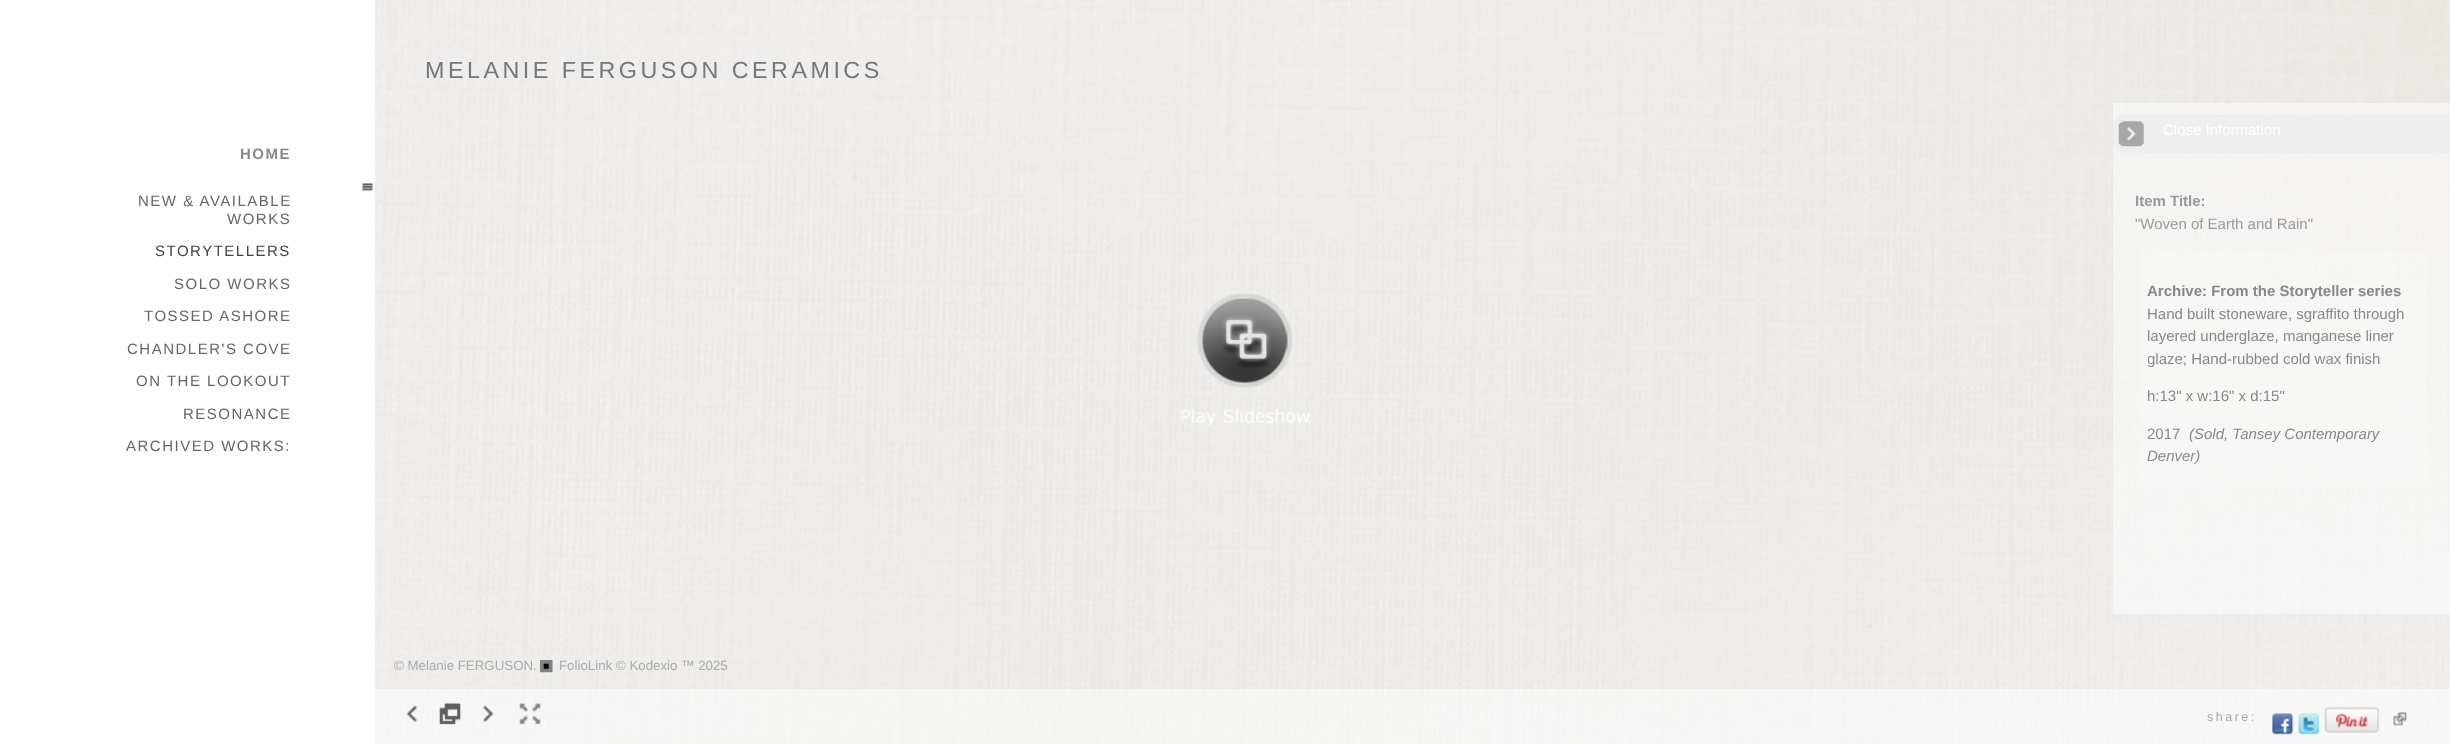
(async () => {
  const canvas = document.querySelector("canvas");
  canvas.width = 2450;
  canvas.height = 744;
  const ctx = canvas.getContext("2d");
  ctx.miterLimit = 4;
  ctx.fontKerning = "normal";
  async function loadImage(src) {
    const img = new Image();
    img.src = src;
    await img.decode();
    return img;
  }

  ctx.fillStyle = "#eeeeee";
  ctx.fillRect(0, 0, 2450, 744);
  ctx.drawImage(await loadImage("img/1.png"), 0, 0, 2450, 744);
  ctx.fillStyle = "rgba(255, 255, 255, 0.99)";
  ctx.fillRect(0, 0, 375, 744);
  ctx.drawImage(await loadImage("img/2.png"), 362, 183, 11, 8);
  ctx.fillStyle = "rgba(255, 255, 255, 0.5)";
  ctx.fillRect(2113, 103, 337, 511);
  ctx.fillStyle = "#eeeeee";
  ctx.beginPath();
  ctx.roundRect(2113, 115, 337, 38, [10, 0, 0, 10]);
  ctx.fill();
  ctx.drawImage(await loadImage("img/3.png"), 2118, 121, 26, 26);
  ctx.drawImage(await loadImage("img/4.png"), 1181, 293, 129, 134);
  ctx.fillStyle = "rgba(255, 255, 255, 0.2)";
  ctx.fillRect(2141, 250, 286, 238);
  ctx.drawImage(await loadImage("img/5.png"), 540, 660, 13, 13);
  ctx.fillStyle = "rgba(255, 255, 255, 0.5)";
  ctx.fillRect(375, 689, 2075, 55);
  ctx.drawImage(await loadImage("img/6.png"), 406, 705, 11, 17);
  ctx.drawImage(await loadImage("img/7.png"), 439, 703, 22, 21);
  ctx.drawImage(await loadImage("img/8.png"), 439, 703, 22, 22);
  ctx.drawImage(await loadImage("img/9.png"), 483, 705, 10, 17);
  ctx.drawImage(await loadImage("img/10.png"), 519, 703, 22, 22);
  ctx.drawImage(await loadImage("img/11.png"), 2272, 713, 22, 22);
  ctx.drawImage(await loadImage("img/12.png"), 2298, 713, 22, 22);
  ctx.drawImage(await loadImage("img/13.png"), 2324, 707, 56, 26);
  ctx.drawImage(await loadImage("img/14.png"), 2393, 712, 14, 14);
  ctx.letterSpacing = "3.5px";
  ctx.font = "23.3px Liberation Sans";
  ctx.fillStyle = "#777777";
  ctx.fillText("MELANIE FERGUSON CERAMICS", 425, 78);
  ctx.letterSpacing = "1.5px";
  ctx.font = "bold 15px Liberation Sans";
  ctx.fillStyle = "#888888";
  ctx.fillText("HOME", 240, 159);
  ctx.font = "15px Liberation Sans";
  ctx.fillStyle = "#666666";
  ctx.fillText("NEW & AVAILABLE", 138, 206);
  ctx.fillText("WORKS", 227, 224);
  ctx.fillStyle = "#444444";
  ctx.fillText("STORYTELLERS", 155, 256);
  ctx.fillStyle = "#666666";
  for (const [text, x, y] of [
    ["SOLO WORKS", 174, 289],
    ["TOSSED ASHORE", 144, 321],
    ["CHANDLER'S COVE", 127, 354],
    ["ON THE LOOKOUT", 136, 386],
    ["RESONANCE", 183, 419],
    ["ARCHIVED WORKS:", 126, 451],
  ]) {
    ctx.fillText(text, x, y);
  }
  ctx.letterSpacing = "0px";
  ctx.fillStyle = "#ffffff";
  ctx.fillText("Close Information", 2163, 135);
  ctx.font = "bold 15px Liberation Sans";
  ctx.fillStyle = "#999999";
  ctx.fillText("Item Title:", 2135, 206);
  ctx.font = "15px Liberation Sans";
  ctx.fillText("\"Woven of Earth and Rain\"", 2135, 229);
  ctx.font = "bold 15px Liberation Sans";
  ctx.fillStyle = "#888888";
  ctx.fillText("Archive: From the Storyteller series", 2147, 296);
  ctx.font = "15px Liberation Sans";
  ctx.fillText("Hand built stoneware, sgraffito through", 2147, 319);
  ctx.fillText("layered underglaze, manganese liner", 2147, 341);
  ctx.save();
  ctx.beginPath();
  ctx.rect(2148, 265, 273, 223);
  ctx.clip();
  ctx.fillText("glaze; Hand-rubbed cold wax finish", 2147, 364);
  ctx.restore();
  ctx.fillText("h:13\" x w:16\" x d:15\"", 2147, 401);
  ctx.fillText("2017", 2147, 439);
  ctx.font = "italic 15px Liberation Sans";
  ctx.fillText("(Sold, Tansey Contemporary", 2189, 439);
  ctx.fillText("Denver)", 2147, 461);
  ctx.font = "13.3px Liberation Sans";
  ctx.fillStyle = "#aaaaaa";
  ctx.fillText("© Melanie FERGUSON.", 394, 670);
  ctx.fillText("FolioLink © Kodexio ™ 2025", 559, 670);
  ctx.letterSpacing = "2.5px";
  ctx.font = "12.5px Liberation Sans";
  ctx.fillText("share:", 2207, 721);
})();
